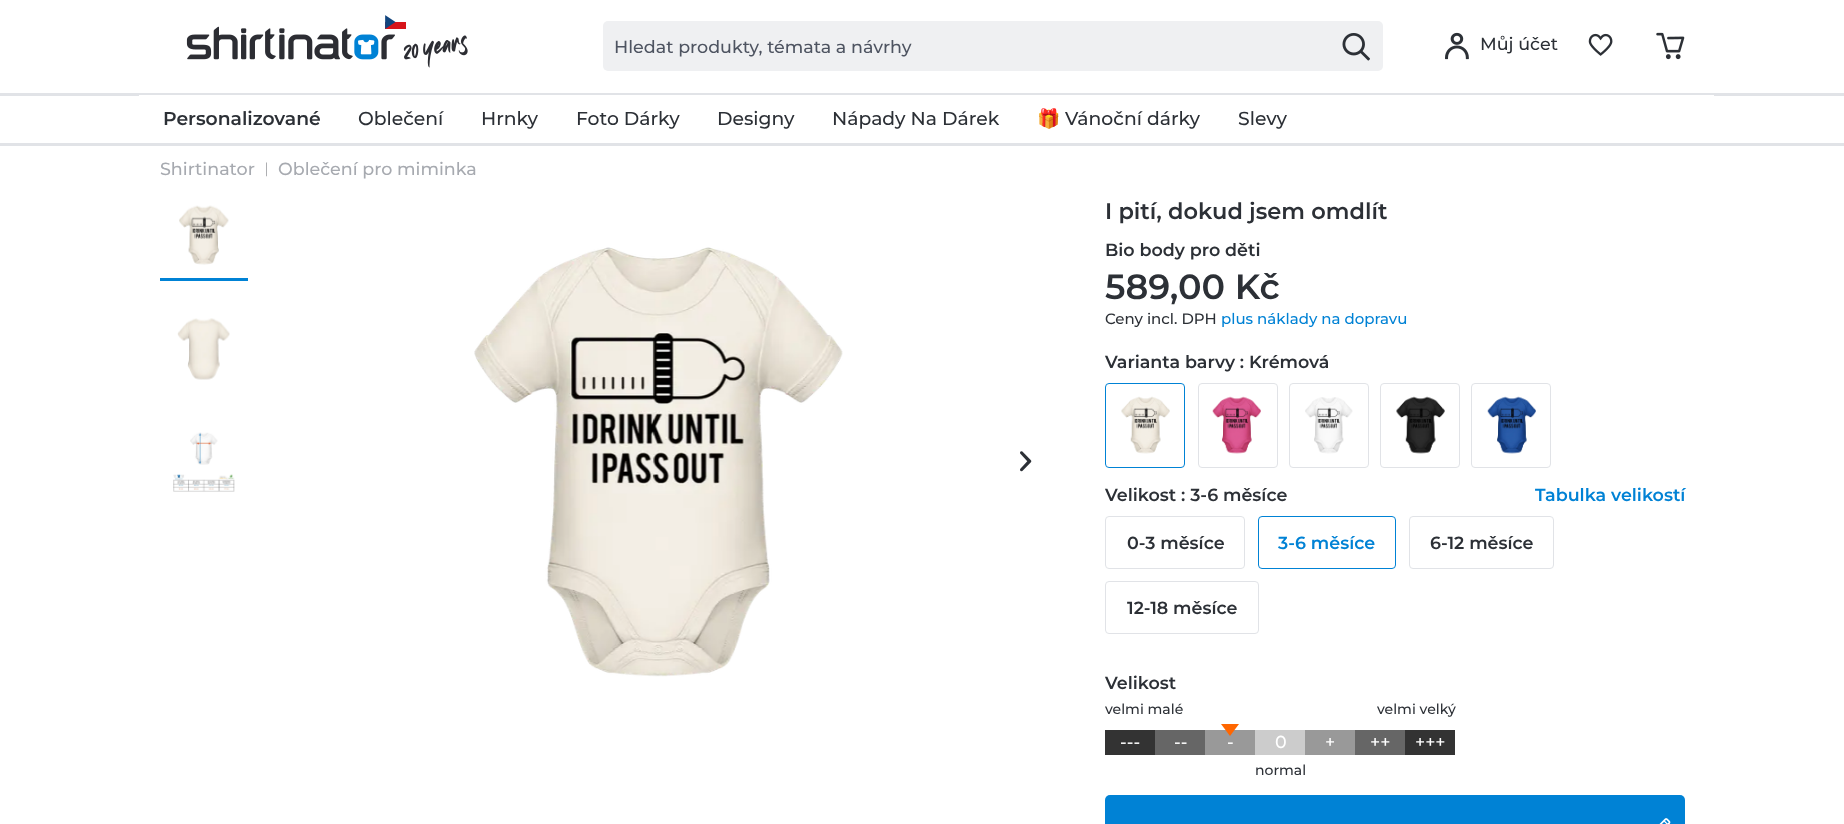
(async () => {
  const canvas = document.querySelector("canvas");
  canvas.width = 1844;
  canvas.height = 824;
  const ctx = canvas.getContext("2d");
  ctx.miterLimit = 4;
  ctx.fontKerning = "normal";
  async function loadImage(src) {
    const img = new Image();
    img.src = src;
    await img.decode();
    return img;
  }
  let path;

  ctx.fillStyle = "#ffffff";
  ctx.fillRect(0, 0, 1844, 824);
  ctx.drawImage(await loadImage("img/1.png"), 186, 15, 282, 53);
  ctx.fillStyle = "#eff0f2";
  ctx.beginPath();
  ctx.roundRect(603, 21, 780, 50, 5);
  ctx.fill();
  ctx.drawImage(await loadImage("img/2.png"), 1342, 33, 28, 28);
  ctx.drawImage(await loadImage("img/3.png"), 1445, 32, 24, 28);
  ctx.drawImage(await loadImage("img/4.png"), 1588, 33, 25, 23);
  ctx.drawImage(await loadImage("img/5.png"), 1656, 32, 29, 28);
  for (const [x, y, w, h, color] of [
    [0, 93, 1844, 3, "#e1e3e7"],
    [0, 143, 1844, 3, "#e1e3e7"],
    [139, 95, 1575, 1, "#ffffff"],
    [160, 278, 88, 3, "#0082d5"],
  ]) {
    ctx.fillStyle = color;
    ctx.fillRect(x, y, w, h);
  }
  ctx.drawImage(await loadImage("img/6.png"), 179, 205, 50, 60);
  ctx.drawImage(await loadImage("img/7.png"), 177, 318, 53, 62);
  ctx.drawImage(await loadImage("img/8.png"), 173, 432, 62, 60);
  ctx.drawImage(await loadImage("img/9.png"), 474, 247, 369, 430);
  ctx.drawImage(await loadImage("img/10.png"), 1020, 451, 12, 21);
  ctx.beginPath();
  ctx.roundRect(1105.5, 383.5, 79, 84, 3.5);
  ctx.strokeStyle = "#0082d5";
  ctx.stroke();
  ctx.drawImage(await loadImage("img/11.png"), 1121, 396, 49, 58);
  ctx.beginPath();
  ctx.roundRect(1198.5, 383.5, 79, 84, 3.5);
  ctx.strokeStyle = "#e1e3e7";
  ctx.stroke();
  ctx.drawImage(await loadImage("img/12.png"), 1212, 396, 49, 58);
  ctx.beginPath();
  ctx.roundRect(1289.5, 383.5, 79, 84, 3.5);
  ctx.stroke();
  ctx.drawImage(await loadImage("img/13.png"), 1305, 397, 48, 57);
  ctx.beginPath();
  ctx.roundRect(1380.5, 383.5, 79, 84, 3.5);
  ctx.stroke();
  ctx.drawImage(await loadImage("img/14.png"), 1396, 396, 49, 58);
  ctx.beginPath();
  ctx.roundRect(1471.5, 383.5, 79, 84, 3.5);
  ctx.stroke();
  ctx.drawImage(await loadImage("img/15.png"), 1487, 396, 49, 58);
  ctx.beginPath();
  ctx.roundRect(1105.5, 516.5, 139, 52, 3.5);
  ctx.stroke();
  ctx.beginPath();
  ctx.roundRect(1258.5, 516.5, 137, 52, 3.5);
  ctx.strokeStyle = "#0082d5";
  ctx.stroke();
  ctx.beginPath();
  ctx.roundRect(1409.5, 516.5, 144, 52, 3.5);
  ctx.strokeStyle = "#e1e3e7";
  ctx.stroke();
  ctx.beginPath();
  ctx.roundRect(1105.5, 581.5, 153, 52, 3.5);
  ctx.stroke();
  ctx.fillStyle = "#999999";
  ctx.fillRect(1205, 730, 50, 25);
  ctx.fillStyle = "#ff6600";
  path = new Path2D("M1221 724H1239L1230 736Z");
  ctx.fill(path);
  for (const [x, y, w, h, color] of [
    [1105, 730, 50, 25, "#333333"],
    [1155, 730, 50, 25, "#666666"],
    [1255, 730, 50, 25, "#cccccc"],
    [1305, 730, 50, 25, "#999999"],
    [1355, 730, 50, 25, "#666666"],
    [1405, 730, 50, 25, "#333333"],
  ]) {
    ctx.fillStyle = color;
    ctx.fillRect(x, y, w, h);
  }
  ctx.fillStyle = "#0082d5";
  ctx.beginPath();
  ctx.roundRect(1105, 795, 580, 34, 5);
  ctx.fill();
  ctx.drawImage(await loadImage("img/16.png"), 1659, 818, 12, 6);
  ctx.font = "500 17.5px Montserrat";
  ctx.fillStyle = "#4e5461";
  ctx.fillText("Hledat produkty, témata a návrhy", 614, 53);
  ctx.fillStyle = "#2c3036";
  ctx.fillText("Můj účet", 1480, 50);
  ctx.font = "600 18.75px Montserrat";
  ctx.fillText("Personalizované", 163, 125);
  ctx.font = "500 18.75px Montserrat";
  for (const [text, x, y] of [
    ["Oblečení", 358, 125],
    ["Hrnky", 481, 125],
    ["Foto Dárky", 576, 125],
    ["Designy", 717, 125],
    ["Nápady Na Dárek", 832, 125],
  ]) {
    ctx.fillText(text, x, y);
  }
  ctx.font = "18.75px Noto Color Emoji";
  ctx.fillText("🎁", 1037, 125);
  ctx.font = "500 18.75px Montserrat";
  ctx.fillText("Vánoční dárky", 1065, 125);
  ctx.fillText("Slevy", 1238, 125);
  ctx.font = "500 17.5px Montserrat";
  ctx.fillStyle = "#a7aab0";
  ctx.fillText("Shirtinator", 160, 175);
  ctx.font = "15px Liberation Serif";
  ctx.fillStyle = "#96989b";
  ctx.fillText("|", 265, 173);
  ctx.font = "500 17.5px Montserrat";
  ctx.fillStyle = "#a7aab0";
  ctx.fillText("Oblečení pro miminka", 278, 175);
  ctx.font = "600 22.5px Montserrat";
  ctx.fillStyle = "#2c3036";
  ctx.fillText("I pití, dokud jsem omdlít", 1105, 219);
  ctx.font = "600 17.5px Montserrat";
  ctx.fillText("Bio body pro děti", 1105, 256);
  ctx.font = "600 35px Montserrat";
  ctx.fillText("589,00 Kč", 1105, 299);
  ctx.font = "500 15px Montserrat";
  ctx.fillText("Ceny incl. DPH", 1105, 324);
  ctx.fillStyle = "#0082d5";
  ctx.fillText("plus náklady na dopravu", 1221, 324);
  ctx.font = "600 17.5px Montserrat";
  ctx.fillStyle = "#2c3036";
  ctx.fillText("Varianta barvy : Krémová", 1105, 368);
  ctx.fillText("Velikost : 3-6 měsíce", 1105, 501);
  ctx.fillStyle = "#0082d5";
  ctx.fillText("Tabulka velikostí", 1535, 501);
  ctx.fillStyle = "#2c3036";
  ctx.fillText("0-3 měsíce", 1127, 549);
  ctx.fillStyle = "#0082d5";
  ctx.fillText("3-6 měsíce", 1278, 549);
  ctx.fillStyle = "#2c3036";
  for (const [text, x, y] of [
    ["6-12 měsíce", 1430, 549],
    ["12-18 měsíce", 1127, 614],
    ["Velikost", 1105, 689],
  ]) {
    ctx.fillText(text, x, y);
  }
  ctx.font = "500 14px Montserrat";
  ctx.fillText("velmi malé", 1105, 714);
  ctx.fillText("velmi velký", 1377, 714);
  ctx.font = "500 17.5px Montserrat";
  ctx.fillStyle = "#ffffff";
  for (const [text, x, y] of [
    ["---", 1120, 748],
    ["--", 1174, 748],
    ["-", 1227, 748],
    ["0", 1275, 748],
    ["+", 1325, 748],
    ["++", 1370, 748],
    ["+++", 1415, 748],
  ]) {
    ctx.fillText(text, x, y);
  }
  ctx.font = "500 14px Montserrat";
  ctx.fillStyle = "#2c3036";
  ctx.fillText("normal", 1255, 775);
})();
